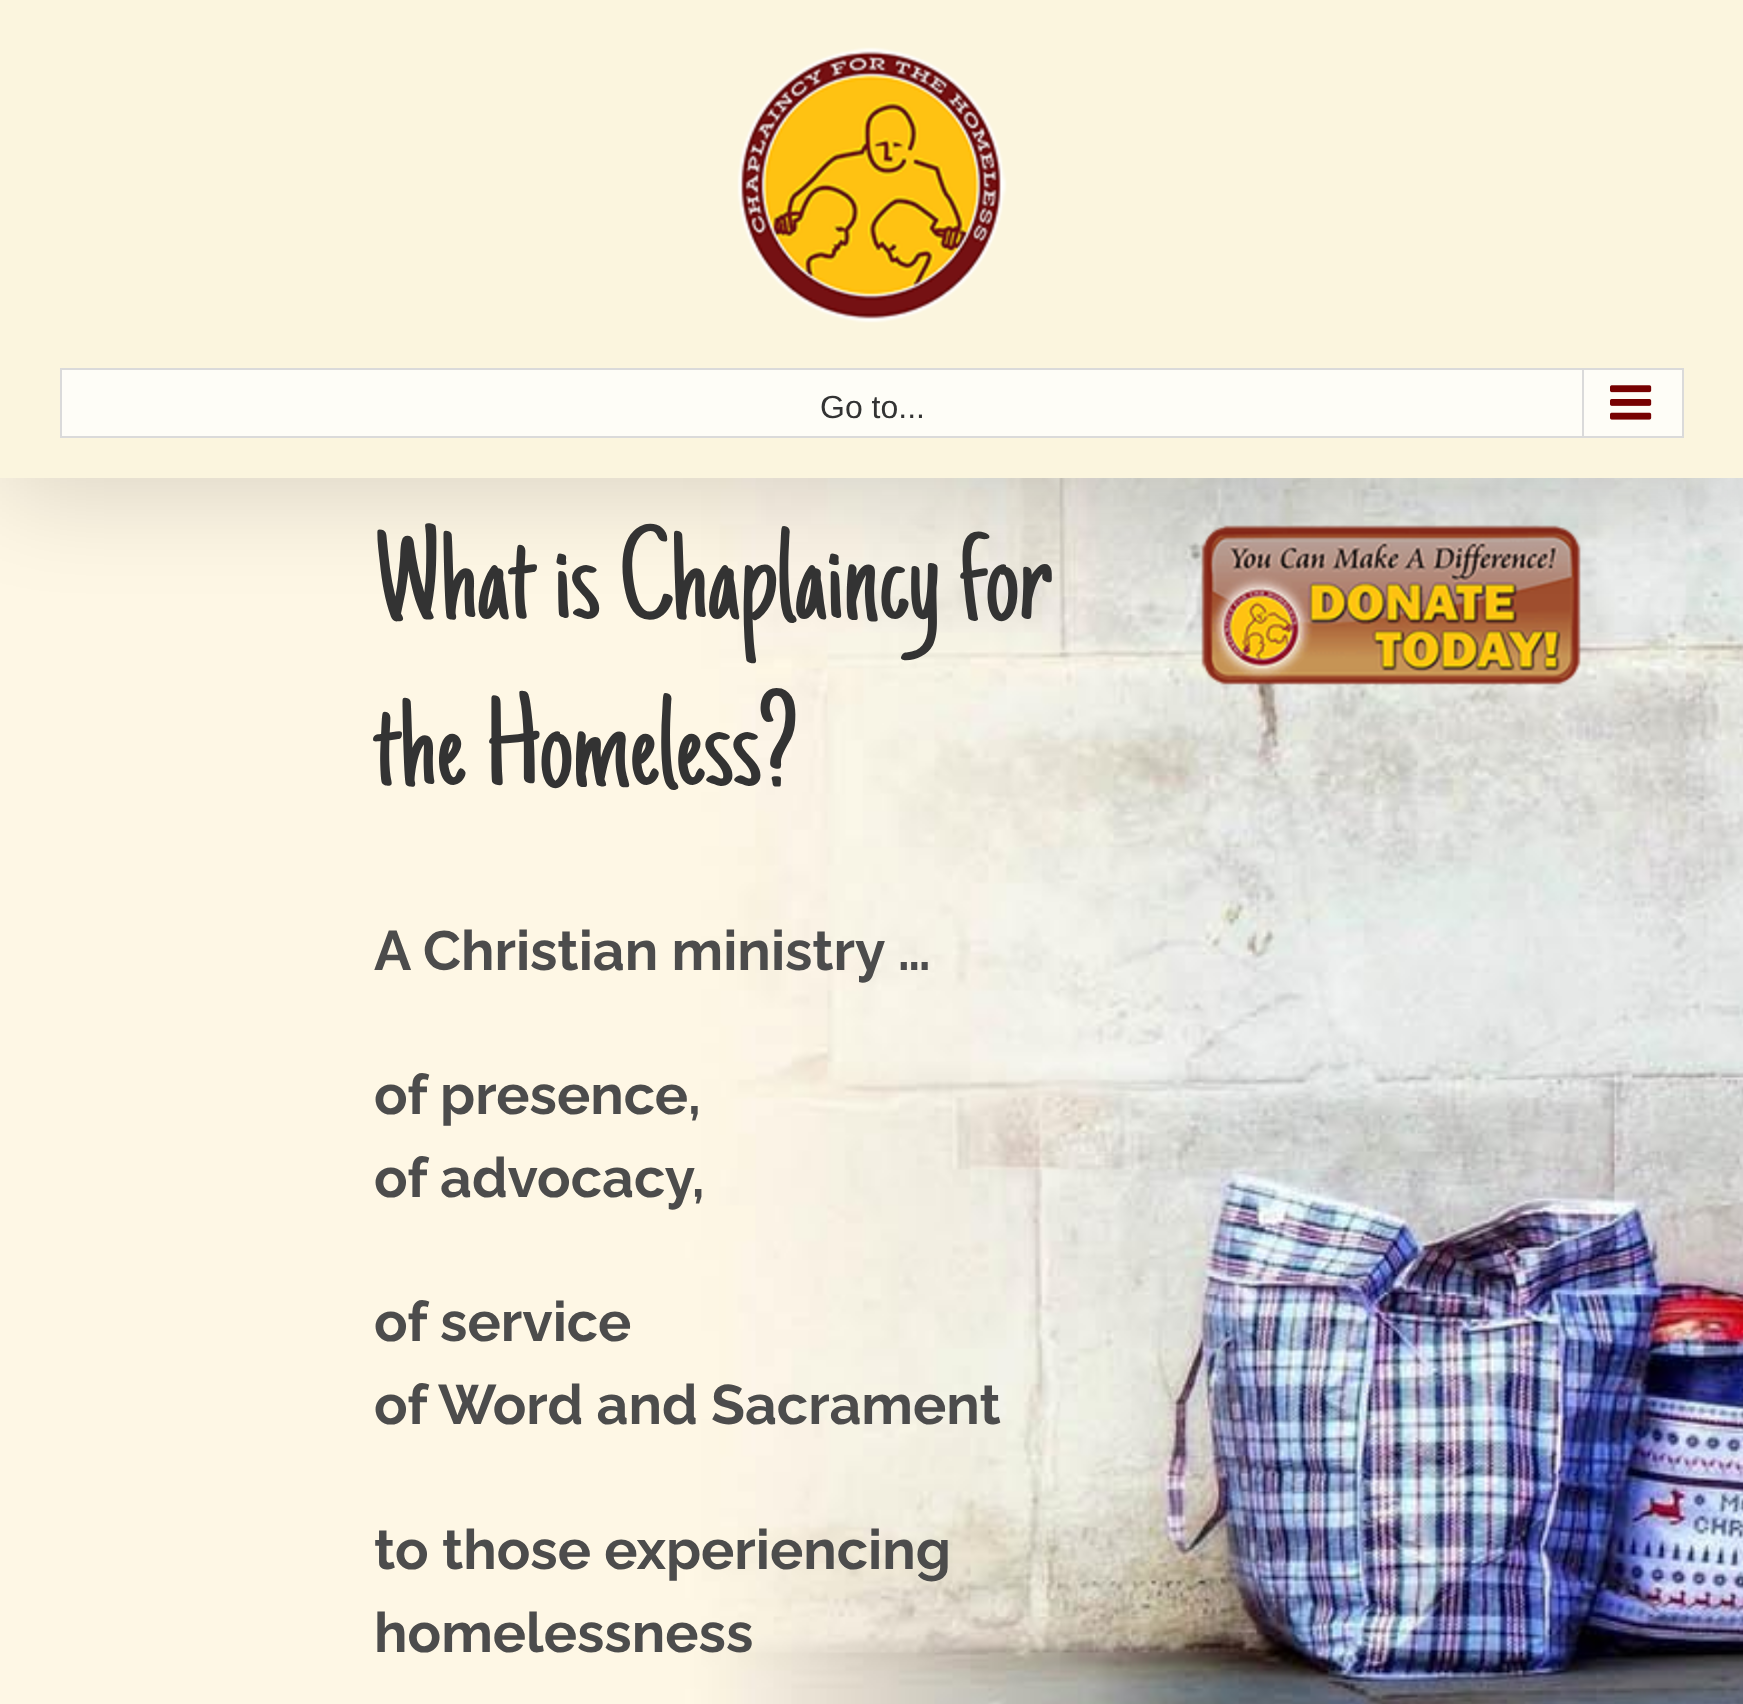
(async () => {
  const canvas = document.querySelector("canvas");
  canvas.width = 1743;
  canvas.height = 1704;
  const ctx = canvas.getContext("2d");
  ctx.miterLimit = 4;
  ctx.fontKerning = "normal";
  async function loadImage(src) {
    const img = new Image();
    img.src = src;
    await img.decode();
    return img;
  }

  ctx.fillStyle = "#ffffff";
  ctx.fillRect(0, 0, 1743, 1704);
  ctx.drawImage(await loadImage("img/3.png"), 0, 478, 1743, 1226);
  ctx.drawImage(await loadImage("img/4.png"), 1201, 525, 380, 160);
  ctx.fillStyle = "rgba(0, 0, 0, 0.14)";
  ctx.filter = "blur(50px)";
  ctx.beginPath();
  ctx.rect(4, 24, 1736, 470);
  ctx.fill();
  ctx.filter = "none";
  ctx.fillStyle = "#fbf5de";
  ctx.fillRect(0, 0, 1743, 478);
  ctx.drawImage(await loadImage("img/1.png"), 737, 47, 270, 276);
  ctx.fillStyle = "#fefdf7";
  ctx.beginPath();
  ctx.rect(61, 369, 1622, 68);
  ctx.fill();
  ctx.strokeStyle = "#dadada";
  ctx.lineWidth = 2;
  ctx.stroke();
  ctx.fillStyle = "#dadada";
  ctx.fillRect(1582, 370, 2, 66);
  ctx.drawImage(await loadImage("img/2.png"), 1610, 385, 42, 35);
  ctx.font = "32px Liberation Sans";
  ctx.fillStyle = "#333333";
  ctx.fillText("Go to...", 820, 418);
  ctx.font = "134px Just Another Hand";
  ctx.fillText("What is Chaplaincy for", 374, 618);
  ctx.fillText("the Homeless?", 374, 785);
  ctx.font = "bold 55.5px Raleway";
  ctx.fillStyle = "#4c4c4c";
  for (const [text, x, y] of [
    ["A Christian ministry …", 374, 970],
    ["of presence,", 374, 1114],
    ["of advocacy,", 374, 1197],
    ["of service", 374, 1341],
    ["of Word and Sacrament", 374, 1424],
    ["to those experiencing", 374, 1569],
    ["homelessness", 374, 1652],
  ]) {
    ctx.fillText(text, x, y);
  }
})();
